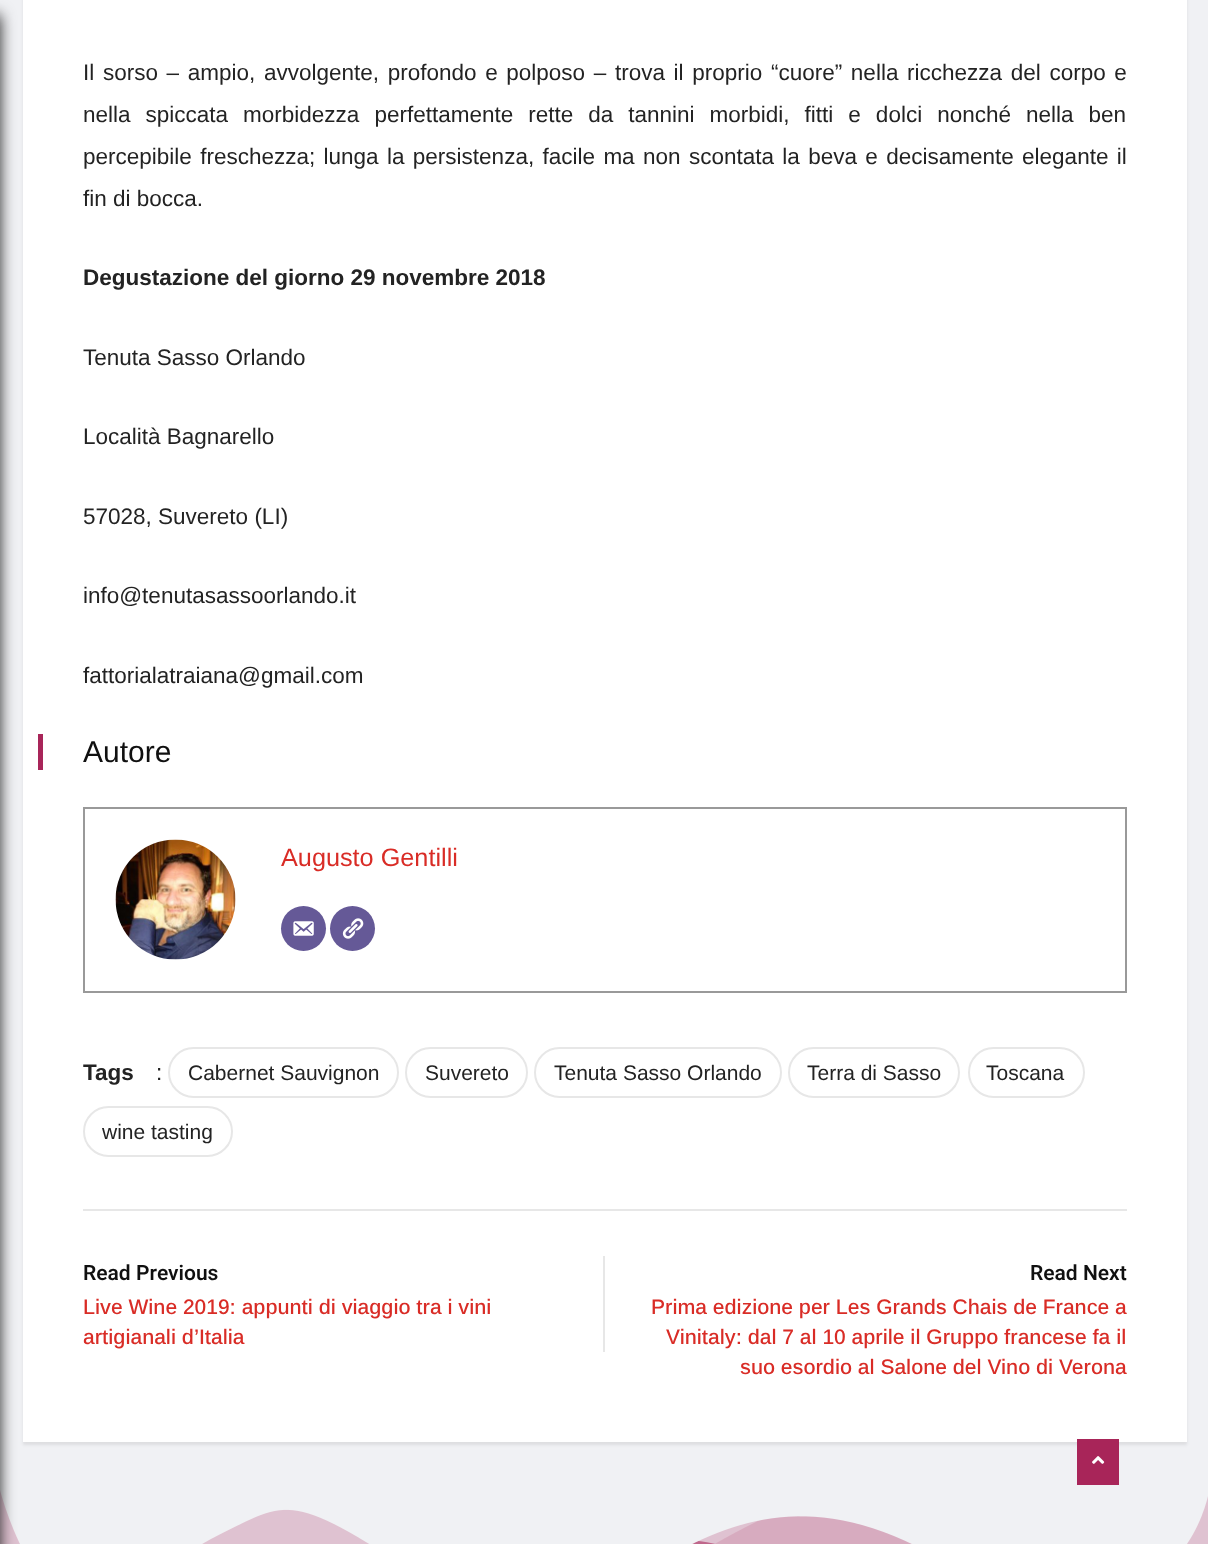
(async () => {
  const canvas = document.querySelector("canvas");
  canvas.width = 1208;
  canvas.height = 1544;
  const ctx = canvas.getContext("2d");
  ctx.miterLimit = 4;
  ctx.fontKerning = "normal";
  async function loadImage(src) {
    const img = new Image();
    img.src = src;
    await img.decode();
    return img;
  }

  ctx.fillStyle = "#f0f1f4";
  ctx.fillRect(0, 0, 1208, 1544);
  ctx.fillStyle = "rgba(0, 0, 0, 0.08)";
  ctx.filter = "blur(1.5px)";
  ctx.beginPath();
  ctx.rect(23, -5, 1164, 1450);
  ctx.fill();
  ctx.filter = "none";
  ctx.fillStyle = "#ffffff";
  ctx.fillRect(23, 0, 1164, 1442);
  ctx.fillStyle = "#a82559";
  ctx.fillRect(0, 1490, 1208, 54);
  ctx.drawImage(await loadImage("img/5.png"), 0, 1488, 1208, 56);
  ctx.fillStyle = "#232323";
  ctx.filter = "blur(7.5px)";
  ctx.beginPath();
  ctx.rect(-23, 15, 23, 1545);
  ctx.fill();
  ctx.filter = "none";
  ctx.fillStyle = "#a82559";
  ctx.fillRect(38, 734, 5, 36);
  ctx.strokeStyle = "#999999";
  ctx.lineWidth = 2;
  ctx.strokeRect(84, 808, 1042, 184);
  ctx.drawImage(await loadImage("img/1.png"), 115, 839, 121, 121);
  ctx.fillStyle = "#655997";
  ctx.beginPath();
  ctx.arc(303.5, 928.5, 22.5, 0, Math.PI * 2);
  ctx.fill();
  ctx.drawImage(await loadImage("img/2.png"), 293, 921, 21, 15);
  ctx.beginPath();
  ctx.arc(352.5, 928.5, 22.5, 0, Math.PI * 2);
  ctx.fill();
  ctx.drawImage(await loadImage("img/3.png"), 342, 918, 22, 21);
  ctx.beginPath();
  ctx.roundRect(169, 1048, 229, 49, 24.5);
  ctx.strokeStyle = "#e7e7e7";
  ctx.stroke();
  ctx.beginPath();
  ctx.roundRect(406, 1048, 121, 49, 24.5);
  ctx.stroke();
  ctx.beginPath();
  ctx.roundRect(535, 1048, 246, 49, 24.5);
  ctx.stroke();
  ctx.beginPath();
  ctx.roundRect(789, 1048, 170, 49, 24.5);
  ctx.stroke();
  ctx.beginPath();
  ctx.roundRect(969, 1048, 115, 49, 24.5);
  ctx.stroke();
  ctx.beginPath();
  ctx.roundRect(84, 1107, 148, 49, 24.5);
  ctx.stroke();
  for (const [x, y, w, h, color] of [
    [83, 1209, 1044, 2, "#e7e7e7"],
    [603, 1256, 2, 96, "#e7e7e7"],
    [1077, 1439, 42, 46, "#a82559"],
  ]) {
    ctx.fillStyle = color;
    ctx.fillRect(x, y, w, h);
  }
  ctx.drawImage(await loadImage("img/4.png"), 1092, 1456, 13, 8);
  ctx.wordSpacing = "2.4px";
  ctx.font = "22.5px Arimo";
  ctx.fillStyle = "#232323";
  ctx.fillText("Il sorso – ampio, avvolgente, profondo e polposo – trova il proprio “cuore” nella ricchezza del corpo e", 83, 80);
  ctx.wordSpacing = "8.75px";
  ctx.fillText("nella spiccata morbidezza perfettamente rette da tannini morbidi, fitti e dolci nonché nella ben", 83, 122);
  ctx.wordSpacing = "2.1px";
  ctx.fillText("percepibile freschezza; lunga la persistenza, facile ma non scontata la beva e decisamente elegante il", 83, 164);
  ctx.wordSpacing = "0px";
  ctx.fillText("fin di bocca.", 83, 206);
  ctx.font = "bold 22.5px Arimo";
  ctx.fillText("Degustazione del giorno 29 novembre 2018", 83, 285);
  ctx.font = "22.5px Arimo";
  for (const [text, x, y] of [
    ["Tenuta Sasso Orlando", 83, 365],
    ["Località Bagnarello", 83, 444],
    ["57028, Suvereto (LI)", 83, 524],
    ["info@tenutasassoorlando.it", 83, 603],
    ["fattorialatraiana@gmail.com", 83, 683],
  ]) {
    ctx.fillText(text, x, y);
  }
  ctx.font = "30px Liberation Sans";
  ctx.fillStyle = "#101010";
  ctx.fillText("Autore", 83, 762);
  ctx.font = "25.25px Arimo";
  ctx.fillStyle = "#d92c26";
  ctx.fillText("Augusto Gentilli", 281, 866);
  ctx.font = "bold 22.5px Arimo";
  ctx.fillStyle = "#232323";
  ctx.fillText("Tags", 83, 1080);
  ctx.font = "22.5px Arimo";
  ctx.fillText(":", 156, 1080);
  ctx.font = "21px Arimo";
  for (const [text, x, y] of [
    ["Cabernet Sauvignon", 188, 1080],
    ["Suvereto", 425, 1080],
    ["Tenuta Sasso Orlando", 554, 1080],
    ["Terra di Sasso", 807, 1080],
    ["Toscana", 986, 1080],
    ["wine tasting", 102, 1139],
  ]) {
    ctx.fillText(text, x, y);
  }
  ctx.font = "600 21px Heebo";
  ctx.fillStyle = "#101010";
  ctx.fillText("Read Previous", 83, 1280);
  ctx.font = "500 21px Arimo";
  ctx.fillStyle = "#d92c26";
  ctx.fillText("Live Wine 2019: appunti di viaggio tra i vini", 83, 1314);
  ctx.fillText("artigianali d’Italia", 83, 1344);
  ctx.font = "600 21px Heebo";
  ctx.fillStyle = "#101010";
  ctx.fillText("Read Next", 1030, 1280);
  ctx.font = "500 21px Arimo";
  ctx.fillStyle = "#d92c26";
  for (const [text, x, y] of [
    ["Prima edizione per Les Grands Chais de France a", 651, 1314],
    ["Vinitaly: dal 7 al 10 aprile il Gruppo francese fa il", 666, 1344],
    ["suo esordio al Salone del Vino di Verona", 740, 1374],
  ]) {
    ctx.fillText(text, x, y);
  }
})();
